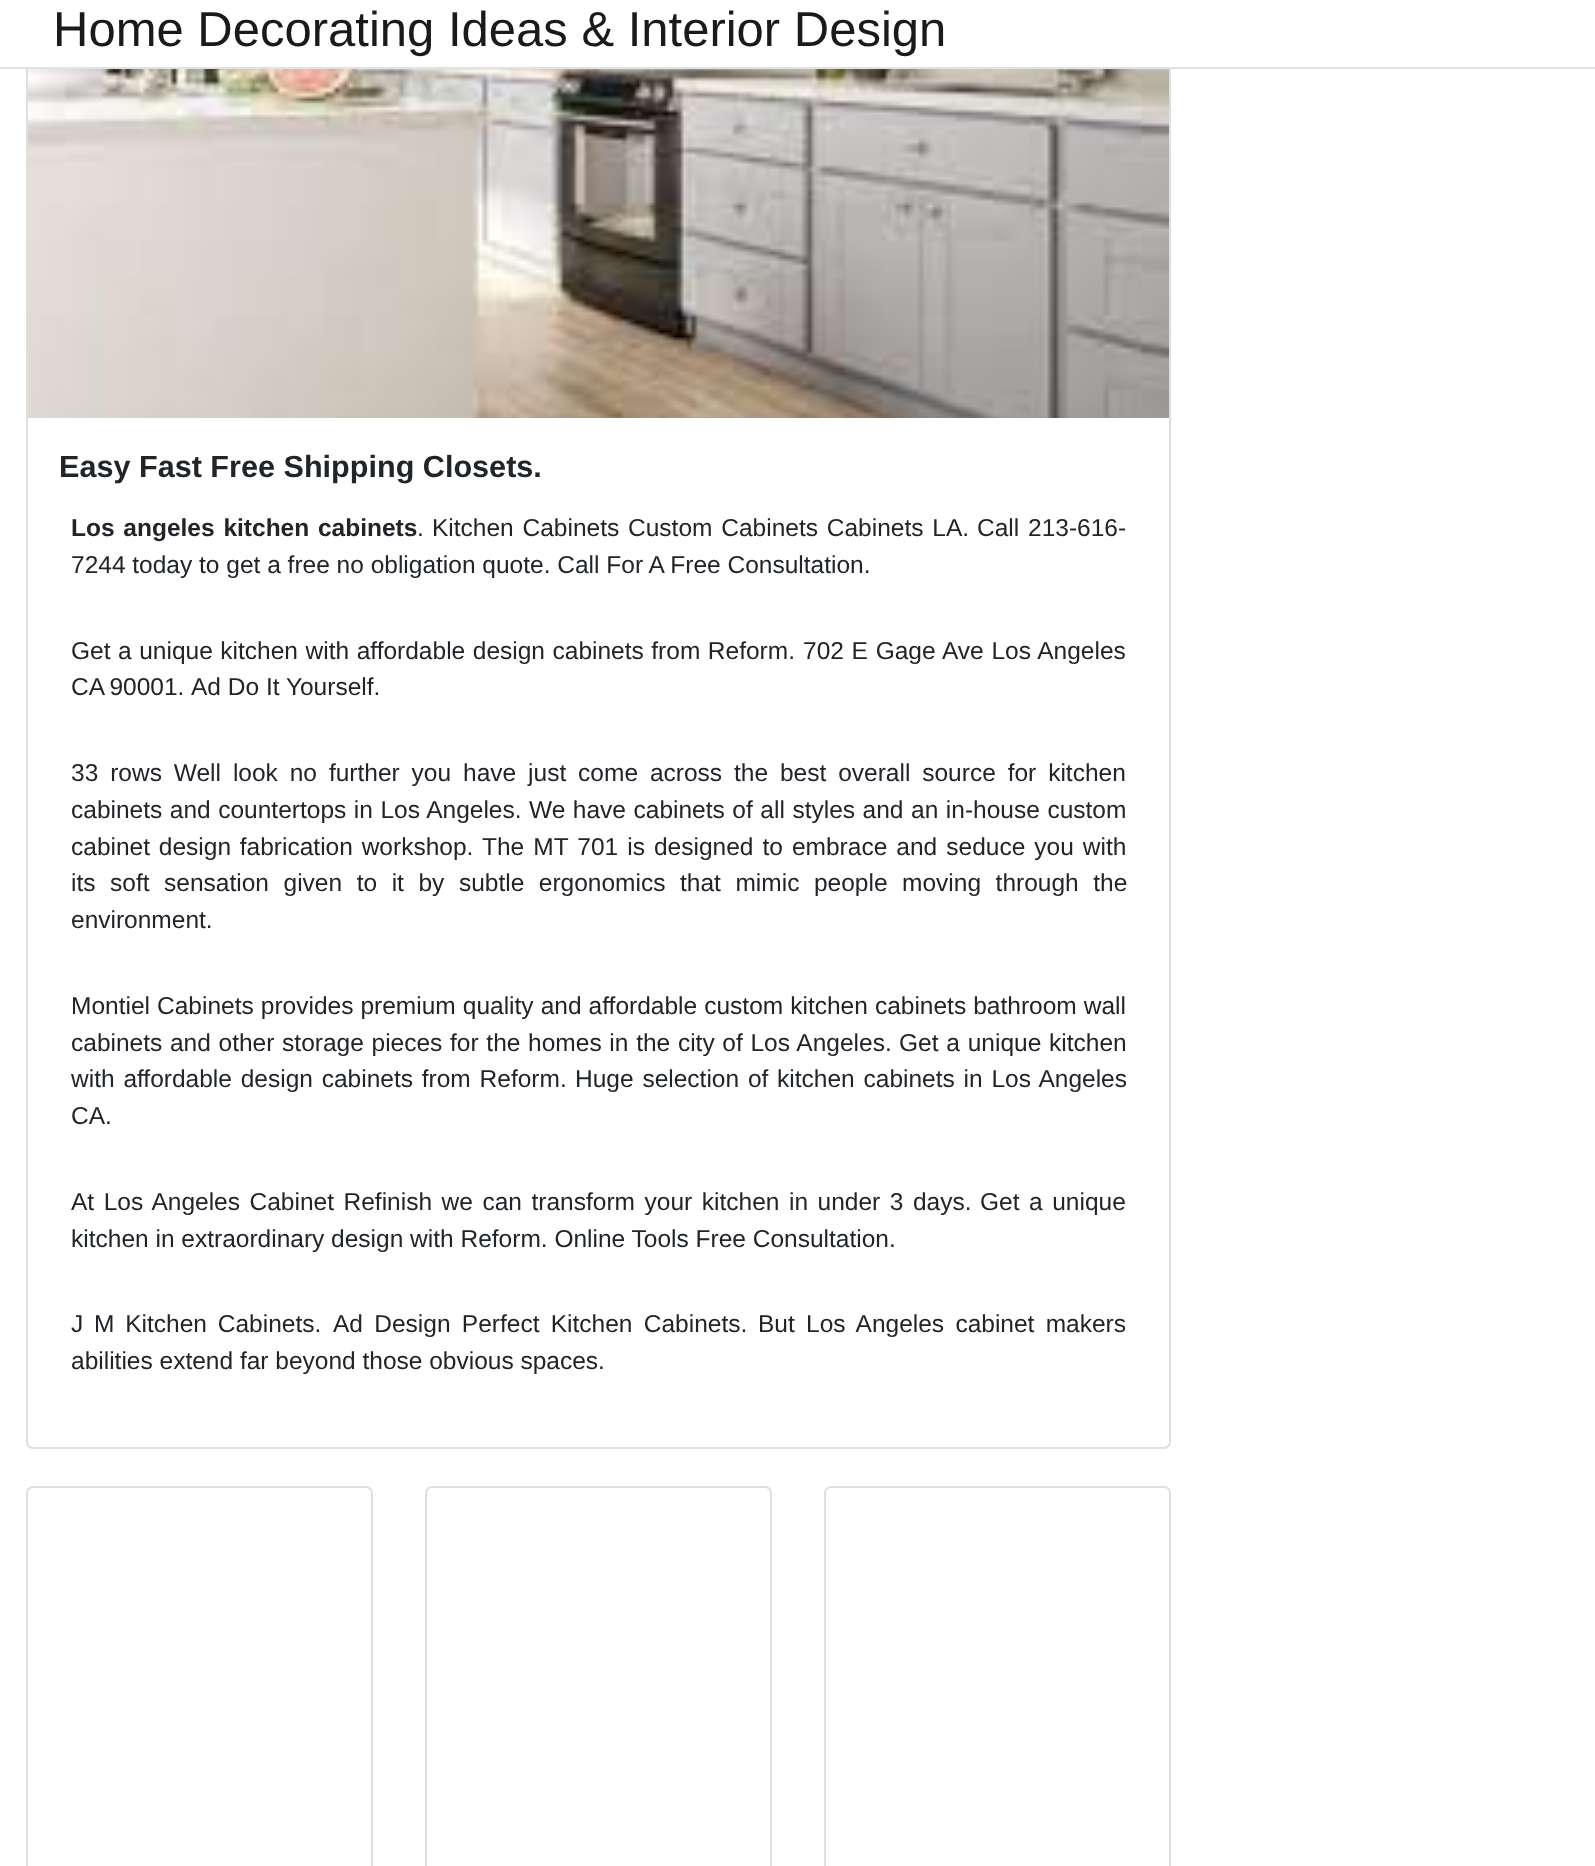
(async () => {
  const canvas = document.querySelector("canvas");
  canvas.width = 1595;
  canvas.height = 1866;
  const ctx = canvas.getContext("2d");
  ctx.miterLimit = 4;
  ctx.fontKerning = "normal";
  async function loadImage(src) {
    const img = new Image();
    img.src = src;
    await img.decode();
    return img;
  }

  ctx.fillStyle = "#ffffff";
  ctx.fillRect(0, 0, 1595, 1866);
  ctx.beginPath();
  ctx.roundRect(27, -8, 1143, 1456, 6);
  ctx.strokeStyle = "#dfdfdf";
  ctx.lineWidth = 2;
  ctx.stroke();
  ctx.fillRect(26, 0, 1145, 67);
  ctx.fillStyle = "#e1e2e3";
  ctx.fillRect(0, 67, 1595, 2);
  ctx.drawImage(await loadImage("img/1.png"), 28, 69, 1141, 349);
  ctx.beginPath();
  ctx.roundRect(27, 1487, 345, 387, 6);
  ctx.stroke();
  ctx.beginPath();
  ctx.roundRect(426, 1487, 345, 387, 6);
  ctx.stroke();
  ctx.beginPath();
  ctx.roundRect(825, 1487, 345, 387, 6);
  ctx.stroke();
  ctx.font = "49px Liberation Sans";
  ctx.fillStyle = "#1a1a1a";
  ctx.fillText("Home Decorating Ideas & Interior Design", 53, 46);
  ctx.font = "bold 30.6px Liberation Sans";
  ctx.fillStyle = "#212529";
  ctx.fillText("Easy Fast Free Shipping Closets.", 59, 477);
  ctx.wordSpacing = "2px";
  ctx.font = "bold 24.5px Liberation Sans";
  ctx.fillText("Los angeles kitchen cabinets", 71, 536);
  ctx.wordSpacing = "0px";
  ctx.font = "24.5px Liberation Sans";
  ctx.fillText(".", 417, 536);
  ctx.wordSpacing = "2px";
  ctx.fillText("Kitchen Cabinets Custom Cabinets Cabinets LA.", 432, 536);
  ctx.fillText("Call 213-616-", 977, 536);
  ctx.wordSpacing = "0px";
  ctx.fillText("7244 today to get a free no obligation quote. Call For A Free Consultation.", 71, 573);
  ctx.wordSpacing = "0.75px";
  ctx.fillText("Get a unique kitchen with affordable design cabinets from Reform.", 71, 659);
  ctx.wordSpacing = "0.9px";
  ctx.fillText("702 E Gage Ave Los Angeles", 803, 659);
  ctx.wordSpacing = "-1px";
  ctx.fillText("CA 90001.", 71, 695);
  ctx.wordSpacing = "0px";
  ctx.fillText("Ad Do It Yourself.", 191, 695);
  ctx.wordSpacing = "5.1px";
  ctx.fillText("33 rows Well look no further you have just come across the best overall source for kitchen", 71, 781);
  ctx.wordSpacing = "0.75px";
  ctx.fillText("cabinets and countertops in Los Angeles.", 71, 818);
  ctx.fillText("We have cabinets of all styles and an in-house custom", 529, 818);
  ctx.wordSpacing = "2px";
  ctx.fillText("cabinet design fabrication workshop.", 71, 855);
  ctx.wordSpacing = "2.25px";
  ctx.fillText("The MT 701 is designed to embrace and seduce you with", 482, 855);
  ctx.wordSpacing = "7.75px";
  ctx.fillText("its soft sensation given to it by subtle ergonomics that mimic people moving through the", 71, 891);
  ctx.wordSpacing = "0px";
  ctx.fillText("environment.", 71, 928);
  ctx.wordSpacing = "0.25px";
  ctx.fillText("Montiel Cabinets provides premium quality and affordable custom kitchen cabinets bathroom wall", 71, 1014);
  ctx.wordSpacing = "0.9px";
  ctx.fillText("cabinets and other storage pieces for the homes in the city of Los Angeles.", 71, 1051);
  ctx.wordSpacing = "1px";
  ctx.fillText("Get a unique kitchen", 899, 1051);
  ctx.wordSpacing = "2px";
  ctx.fillText("with affordable design cabinets from Reform.", 71, 1087);
  ctx.fillText("Huge selection of kitchen cabinets in Los Angeles", 575, 1087);
  ctx.wordSpacing = "0px";
  ctx.fillText("CA.", 71, 1124);
  ctx.wordSpacing = "2.75px";
  ctx.fillText("At Los Angeles Cabinet Refinish we can transform your kitchen in under 3 days.", 71, 1210);
  ctx.fillText("Get a unique", 980, 1210);
  ctx.wordSpacing = "0px";
  ctx.fillText("kitchen in extraordinary design with Reform. Online Tools Free Consultation.", 71, 1247);
  ctx.wordSpacing = "4px";
  ctx.fillText("J M Kitchen Cabinets.", 71, 1332);
  ctx.wordSpacing = "4.5px";
  ctx.fillText("Ad Design Perfect Kitchen Cabinets.", 333, 1332);
  ctx.fillText("But Los Angeles cabinet makers", 758, 1332);
  ctx.wordSpacing = "0px";
  ctx.fillText("abilities extend far beyond those obvious spaces.", 71, 1369);
})();
